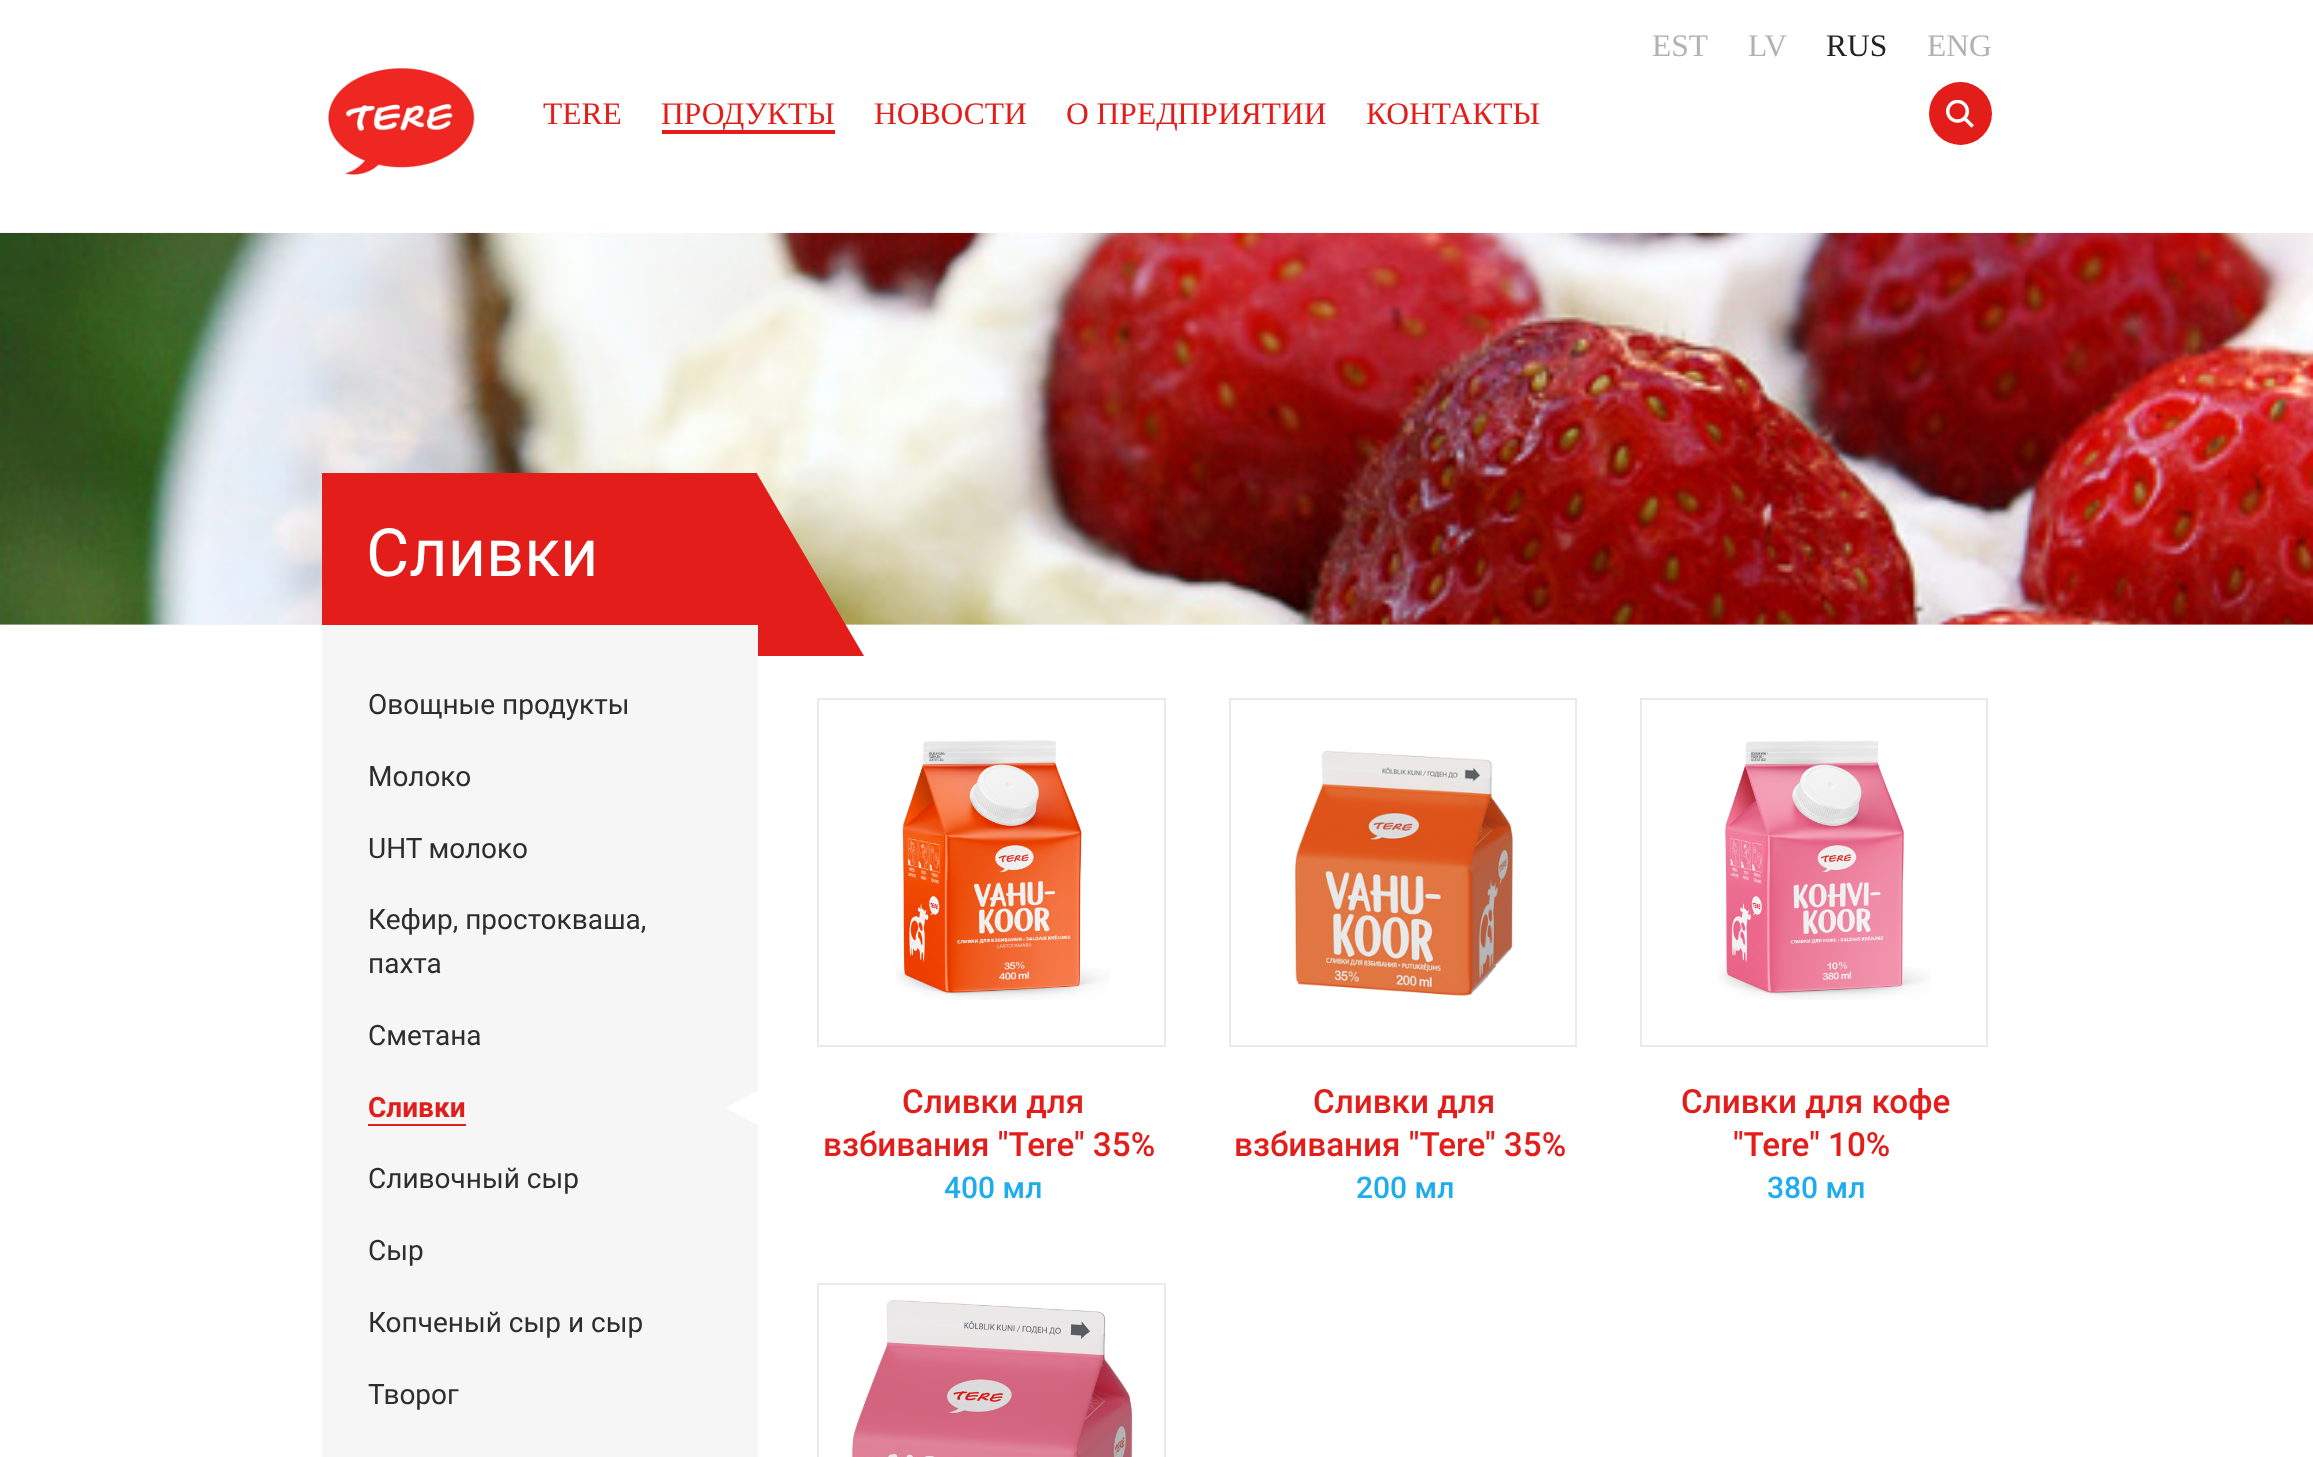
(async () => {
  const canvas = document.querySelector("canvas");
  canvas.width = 2313;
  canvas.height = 1457;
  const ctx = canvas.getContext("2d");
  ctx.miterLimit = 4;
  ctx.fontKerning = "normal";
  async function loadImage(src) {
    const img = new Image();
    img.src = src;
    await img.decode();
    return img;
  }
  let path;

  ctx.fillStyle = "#ffffff";
  ctx.fillRect(0, 0, 2313, 1457);
  ctx.drawImage(await loadImage("img/1.png"), 328, 67, 147, 108);
  ctx.fillStyle = "#e31d1a";
  ctx.fillRect(662, 130, 173, 4);
  ctx.beginPath();
  ctx.arc(1960.5, 113.5, 31.5, 0, Math.PI * 2);
  ctx.fill();
  ctx.drawImage(await loadImage("img/2.png"), 1946, 100, 28, 28);
  ctx.fillStyle = "#f6f6f6";
  ctx.fillRect(0, 624, 2313, 1);
  ctx.drawImage(await loadImage("img/3.png"), 0, 232, 2313, 393);
  ctx.fillStyle = "#e31d1a";
  ctx.fillRect(322, 473, 434, 152);
  path = new Path2D("M864 656H756V472Z");
  ctx.fill(path);
  ctx.fillStyle = "#f6f6f6";
  ctx.fillRect(322, 625, 436, 832);
  ctx.fillStyle = "#e31d1a";
  ctx.fillRect(368, 1124, 98, 2);
  ctx.fillStyle = "#ffffff";
  path = new Path2D("M758 1090V1125L726 1108Z");
  ctx.fill(path);
  ctx.drawImage(await loadImage("img/4.png"), 895, 740, 214, 260);
  ctx.strokeStyle = "#eaeaea";
  ctx.lineWidth = 2;
  ctx.strokeRect(818, 699, 347, 347);
  ctx.drawImage(await loadImage("img/5.png"), 1295, 751, 218, 245);
  ctx.strokeRect(1230, 699, 346, 347);
  ctx.drawImage(await loadImage("img/6.png"), 1718, 740, 213, 260);
  ctx.strokeRect(1641, 699, 346, 347);
  ctx.drawImage(await loadImage("img/7.png"), 852, 1300, 281, 157);
  ctx.strokeRect(818, 1284, 347, 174);
  ctx.font = "31.5px Liberation Serif";
  ctx.fillStyle = "#b2b2b2";
  ctx.fillText("EST", 1652, 56);
  ctx.fillText("LV", 1748, 56);
  ctx.fillStyle = "#232323";
  ctx.fillText("RUS", 1826, 56);
  ctx.fillStyle = "#b2b2b2";
  ctx.fillText("ENG", 1927, 56);
  ctx.fillStyle = "#e31d1a";
  for (const [text, x, y] of [
    ["TERE", 543, 124],
    ["ПРОДУКТЫ", 661, 124],
    ["НОВОСТИ", 874, 124],
    ["О ПРЕДПРИЯТИИ", 1066, 124],
    ["КОНТАКТЫ", 1366, 124],
  ]) {
    ctx.fillText(text, x, y);
  }
  ctx.font = "66.5px Roboto";
  ctx.fillStyle = "#ffffff";
  ctx.fillText("Сливки", 366, 576);
  ctx.font = "28px Roboto";
  ctx.fillStyle = "#2d2d2d";
  ctx.fillText("Овощные продукты", 368, 714);
  ctx.fillText("Молоко", 368, 786);
  ctx.wordSpacing = "-1px";
  ctx.fillText("UHT молоко", 368, 858);
  ctx.wordSpacing = "0px";
  for (const [text, x, y] of [
    ["Кефир, простокваша,", 368, 929],
    ["пахта", 368, 973],
    ["Сметана", 368, 1045],
  ]) {
    ctx.fillText(text, x, y);
  }
  ctx.font = "bold 28px Roboto";
  ctx.fillStyle = "#e31d1a";
  ctx.fillText("Сливки", 368, 1117);
  ctx.font = "28px Roboto";
  ctx.fillStyle = "#2d2d2d";
  for (const [text, x, y] of [
    ["Сливочный сыр", 368, 1188],
    ["Сыр", 368, 1260],
    ["Копченый сыр и сыр", 368, 1332],
    ["Творог", 368, 1404],
  ]) {
    ctx.fillText(text, x, y);
  }
  ctx.font = "500 33.25px Roboto";
  ctx.fillStyle = "#e31d1a";
  ctx.fillText("Сливки для", 902, 1113);
  ctx.fillText("взбивания \"Tere\" 35%", 823, 1156);
  ctx.font = "500 30px Roboto";
  ctx.fillStyle = "#1facee";
  ctx.fillText("400 мл", 944, 1198);
  ctx.font = "500 33.25px Roboto";
  ctx.fillStyle = "#e31d1a";
  ctx.fillText("Сливки для", 1313, 1113);
  ctx.fillText("взбивания \"Tere\" 35%", 1234, 1156);
  ctx.font = "500 30px Roboto";
  ctx.fillStyle = "#1facee";
  ctx.fillText("200 мл", 1356, 1198);
  ctx.font = "500 33.25px Roboto";
  ctx.fillStyle = "#e31d1a";
  ctx.fillText("Сливки для кофе", 1681, 1113);
  ctx.fillText("\"Tere\" 10%", 1733, 1156);
  ctx.font = "500 30px Roboto";
  ctx.fillStyle = "#1facee";
  ctx.fillText("380 мл", 1767, 1198);
})();
